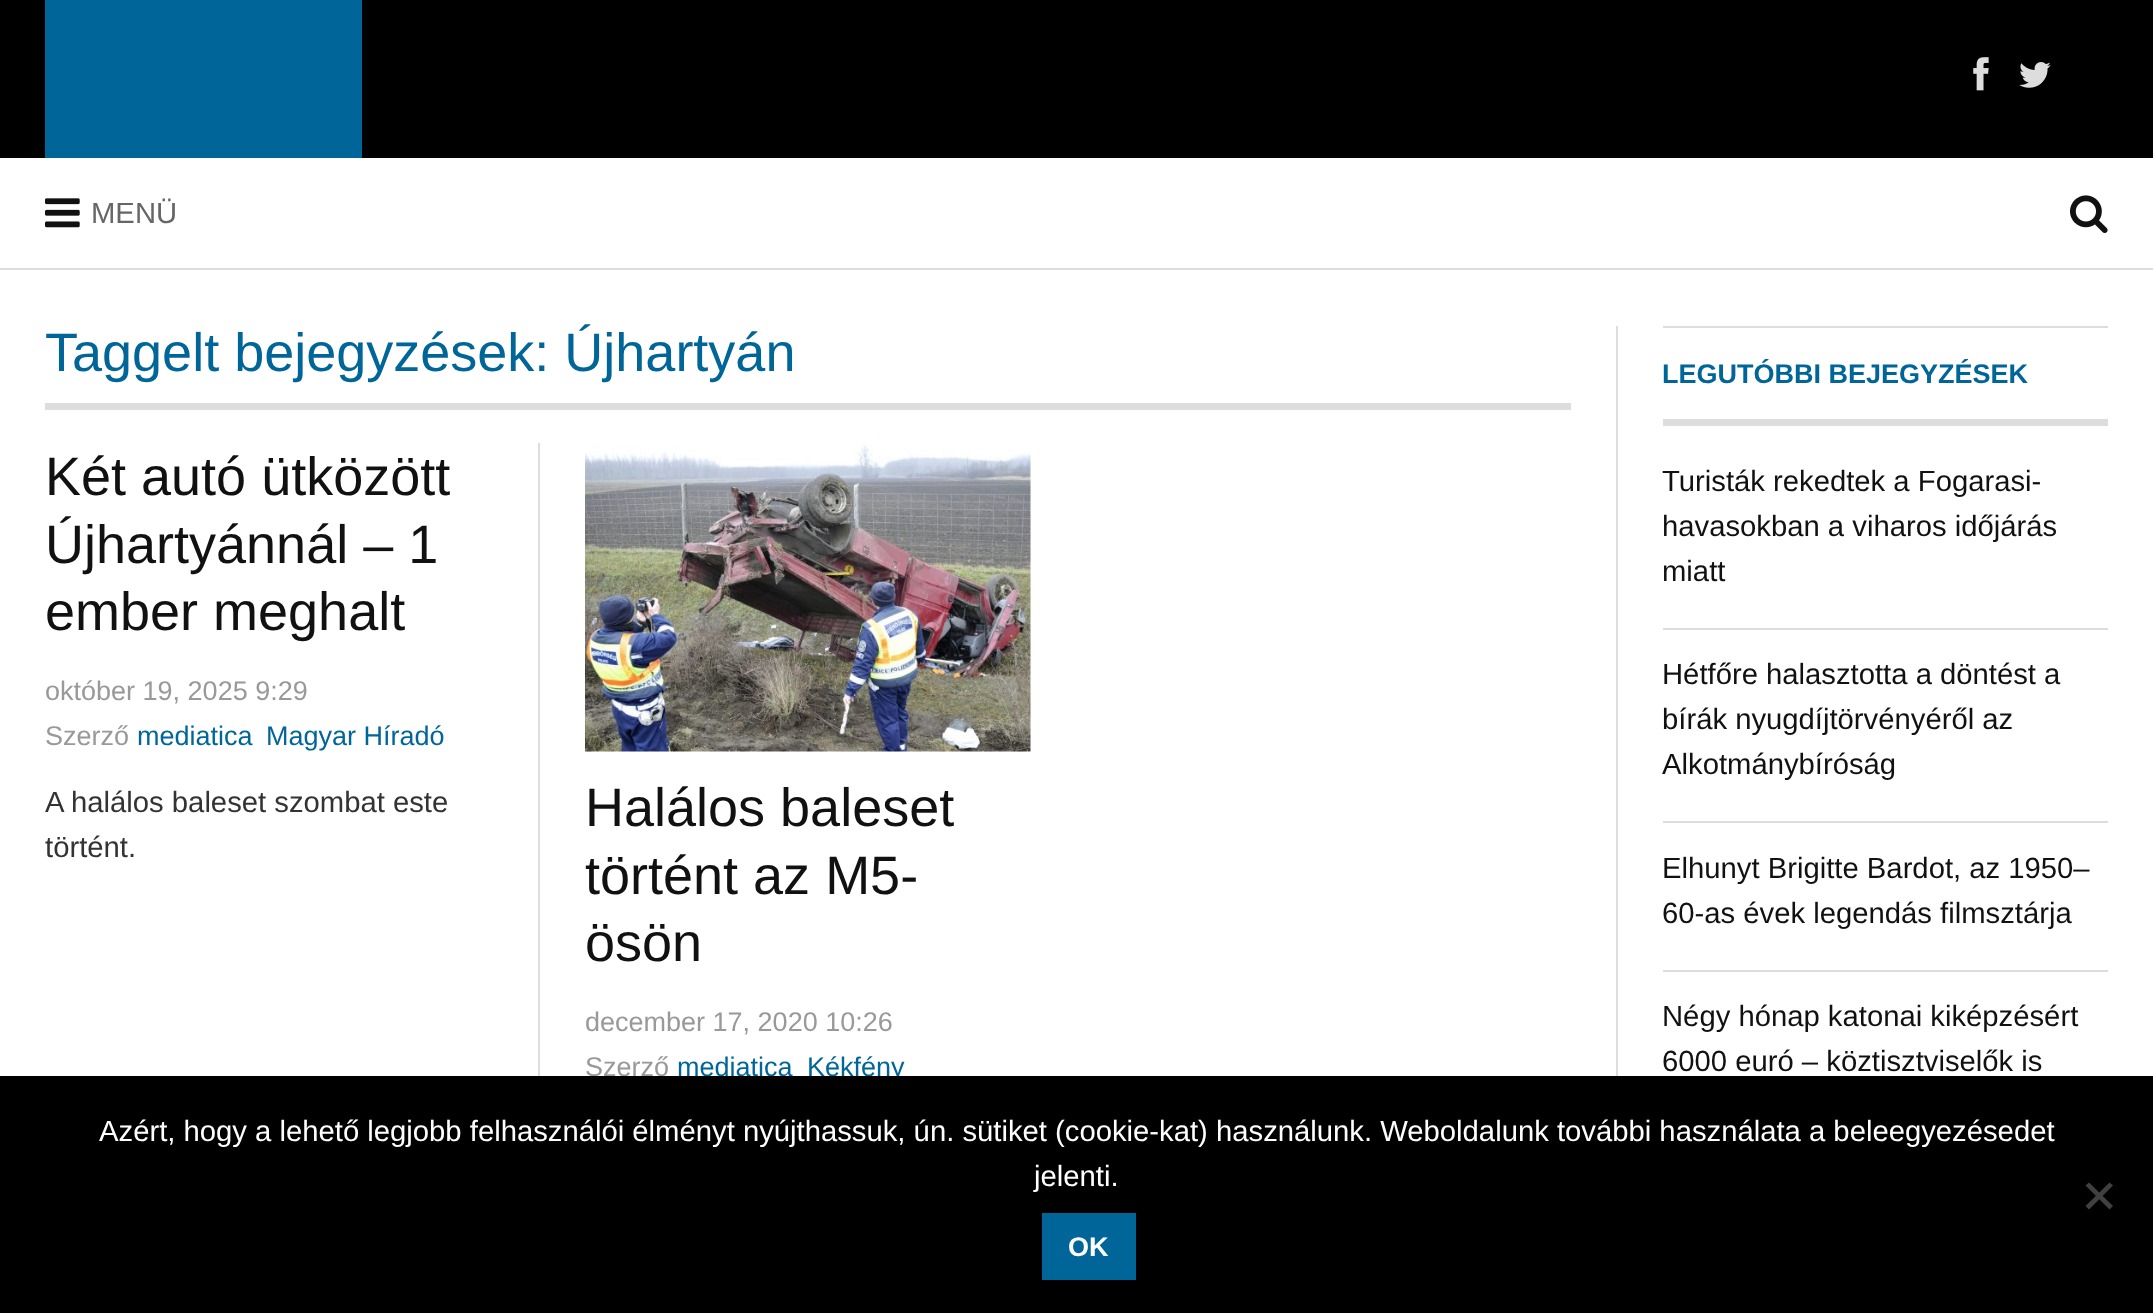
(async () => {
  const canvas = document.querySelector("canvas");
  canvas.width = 2153;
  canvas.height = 1313;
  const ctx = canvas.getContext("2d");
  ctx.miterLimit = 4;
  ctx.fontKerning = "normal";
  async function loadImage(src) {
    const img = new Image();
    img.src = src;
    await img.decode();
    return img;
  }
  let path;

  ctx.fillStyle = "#ffffff";
  ctx.fillRect(0, 0, 2153, 1313);
  ctx.fillStyle = "#000000";
  ctx.fillRect(0, 0, 2153, 158);
  ctx.fillStyle = "#006699";
  ctx.fillRect(45, 0, 317, 158);
  ctx.drawImage(await loadImage("img/1.png"), 1973, 57, 16, 34);
  ctx.drawImage(await loadImage("img/2.png"), 2019, 62, 32, 26);
  ctx.fillStyle = "#dddddd";
  ctx.fillRect(0, 268, 2153, 2);
  ctx.drawImage(await loadImage("img/3.png"), 45, 198, 35, 30);
  ctx.drawImage(await loadImage("img/4.png"), 2070, 195, 38, 38);
  ctx.fillRect(45, 403, 1526, 7);
  ctx.fillRect(538, 443, 2, 633);
  ctx.drawImage(await loadImage("img/5.png"), 585, 443, 446, 309);
  for (const [x, y, w, h, color] of [
    [1616, 326, 2, 750, "#dddddd"],
    [1663, 326, 445, 2, "#dddddd"],
    [1663, 419, 445, 7, "#dddddd"],
    [1663, 628, 445, 2, "#dddddd"],
    [1663, 821, 445, 2, "#dddddd"],
    [1663, 970, 445, 2, "#dddddd"],
  ]) {
    ctx.fillStyle = color;
    ctx.fillRect(x, y, w, h);
  }
  ctx.font = "29.25px Liberation Sans";
  ctx.fillStyle = "#666666";
  ctx.fillText("MENÜ", 91, 223);
  ctx.font = "54px Liberation Sans";
  ctx.fillStyle = "#006699";
  ctx.fillText("Taggelt bejegyzések: Újhartyán", 45, 371);
  ctx.fillStyle = "#111111";
  for (const [text, x, y] of [
    ["Két autó ütközött", 45, 495],
    ["Újhartyánnál – 1", 45, 563],
    ["ember meghalt", 45, 630],
  ]) {
    ctx.fillText(text, x, y);
  }
  ctx.font = "27px Liberation Sans";
  ctx.fillStyle = "#999999";
  ctx.fillText("október 19, 2025 9:29", 45, 700);
  ctx.fillText("Szerző", 45, 745);
  ctx.fillStyle = "#006699";
  ctx.fillText("mediatica", 137, 745);
  ctx.fillText("Magyar Híradó", 266, 745);
  ctx.font = "29.25px Liberation Sans";
  ctx.fillStyle = "#333333";
  ctx.fillText("A halálos baleset szombat este", 45, 812);
  ctx.fillText("történt.", 45, 857);
  ctx.font = "54px Liberation Sans";
  ctx.fillStyle = "#111111";
  for (const [text, x, y] of [
    ["Halálos baleset", 585, 826],
    ["történt az M5-", 585, 894],
    ["ösön", 585, 961],
  ]) {
    ctx.fillText(text, x, y);
  }
  ctx.font = "27px Liberation Sans";
  ctx.fillStyle = "#999999";
  ctx.fillText("december 17, 2020 10:26", 585, 1031);
  ctx.fillText("Szerző", 585, 1076);
  ctx.fillStyle = "#006699";
  ctx.fillText("mediatica", 677, 1076);
  ctx.fillText("Kékfény", 807, 1076);
  ctx.font = "bold 27px Liberation Sans";
  ctx.fillText("LEGUTÓBBI BEJEGYZÉSEK", 1662, 383);
  ctx.font = "29.25px Liberation Sans";
  ctx.fillStyle = "#111111";
  for (const [text, x, y] of [
    ["Turisták rekedtek a Fogarasi-", 1662, 491],
    ["havasokban a viharos időjárás", 1662, 536],
    ["miatt", 1662, 581],
    ["Hétfőre halasztotta a döntést a", 1662, 684],
    ["bírák nyugdíjtörvényéről az", 1662, 729],
    ["Alkotmánybíróság", 1662, 774],
    ["Elhunyt Brigitte Bardot, az 1950–", 1662, 878],
    ["60-as évek legendás filmsztárja", 1662, 923],
    ["Négy hónap katonai kiképzésért", 1662, 1026],
    ["6000 euró – köztisztviselők is", 1662, 1071],
  ]) {
    ctx.fillText(text, x, y);
  }
  ctx.fillStyle = "#000000";
  ctx.fillRect(0, 1076, 2153, 237);
  ctx.fillStyle = "#ffffff";
  ctx.fillText("Azért, hogy a lehető legjobb felhasználói élményt nyújthassuk, ún. sütiket (cookie-kat) használunk. Weboldalunk további használata a beleegyezésedet", 99, 1141);
  ctx.fillText("jelenti.", 1034, 1186);
  ctx.fillStyle = "#404040";
  path = new Path2D("M2109.5 1182.5L2113 1185.5L2089 1209.5L2085.5 1206Z");
  ctx.fill(path);
  path = new Path2D("M2085.5 1185.5L2089 1182.5L2113 1206L2109.5 1209.5Z");
  ctx.fill(path);
  ctx.fillStyle = "#006699";
  ctx.fillRect(1042, 1213, 94, 67);
  ctx.font = "bold 27px Liberation Sans";
  ctx.fillStyle = "#ffffff";
  ctx.fillText("OK", 1068, 1256);
})();
